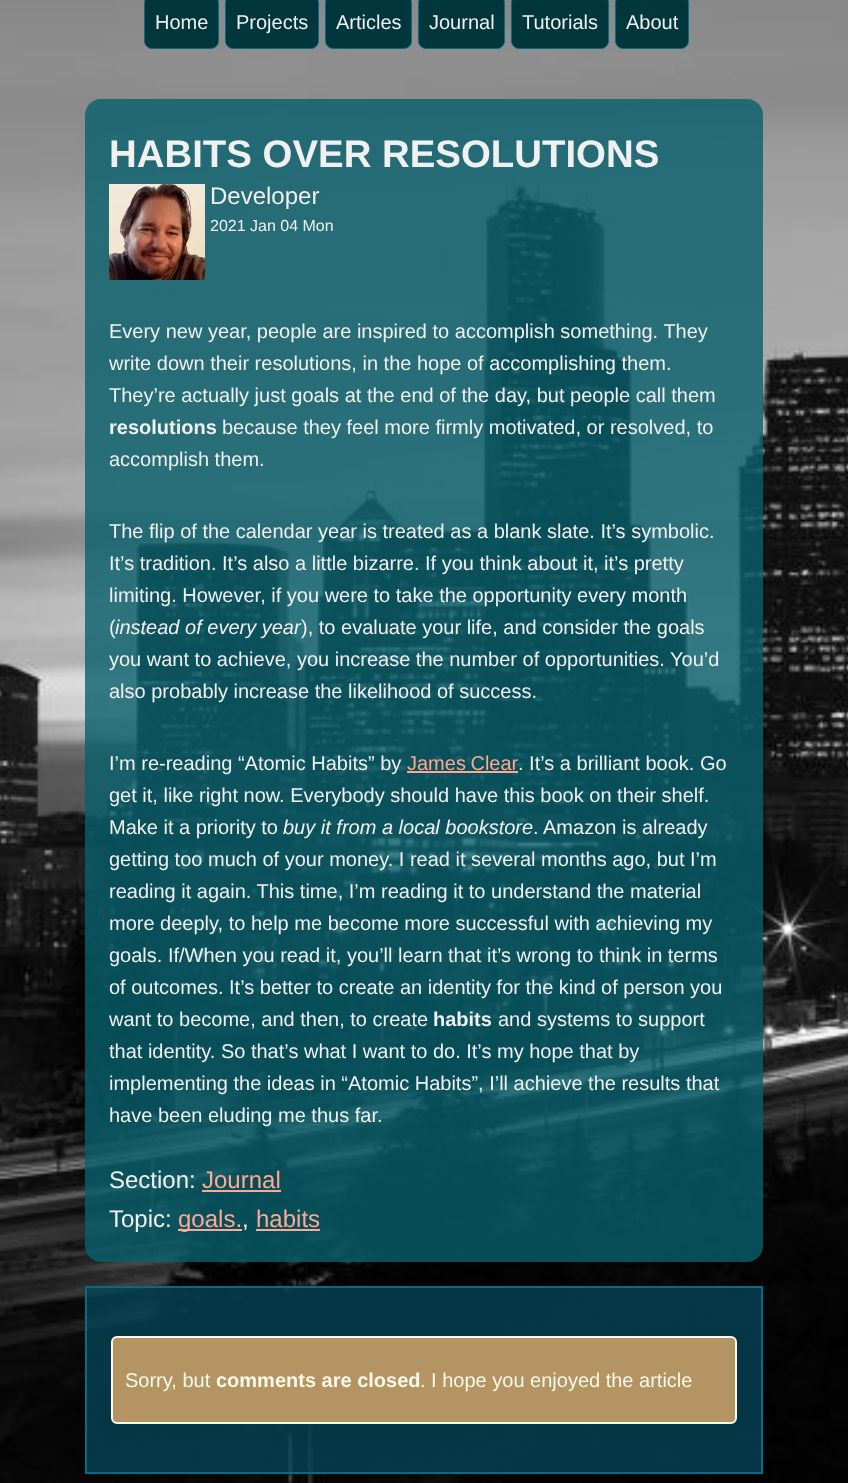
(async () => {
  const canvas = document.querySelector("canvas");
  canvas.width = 848;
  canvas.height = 1483;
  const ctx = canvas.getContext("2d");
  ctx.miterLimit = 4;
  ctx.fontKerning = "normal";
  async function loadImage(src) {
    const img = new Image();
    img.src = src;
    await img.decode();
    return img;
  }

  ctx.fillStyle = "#ffffff";
  ctx.fillRect(0, 0, 848, 1483);
  ctx.drawImage(await loadImage("img/1.png"), 0, 0, 848, 1483);
  ctx.fillStyle = "#00363c";
  ctx.beginPath();
  ctx.roundRect(144.5, -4.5, 74, 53, 7.5);
  ctx.fill();
  ctx.strokeStyle = "#096a86";
  ctx.stroke();
  ctx.beginPath();
  ctx.roundRect(225.5, -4.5, 93, 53, 7.5);
  ctx.fill();
  ctx.stroke();
  ctx.beginPath();
  ctx.roundRect(325.5, -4.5, 86, 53, 7.5);
  ctx.fill();
  ctx.stroke();
  ctx.beginPath();
  ctx.roundRect(418.5, -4.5, 86, 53, 7.5);
  ctx.fill();
  ctx.stroke();
  ctx.beginPath();
  ctx.roundRect(511.5, -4.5, 97, 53, 7.5);
  ctx.fill();
  ctx.stroke();
  ctx.beginPath();
  ctx.roundRect(615.5, -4.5, 73, 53, 7.5);
  ctx.fill();
  ctx.stroke();
  ctx.fillStyle = "rgba(9, 96, 110, 0.8)";
  ctx.beginPath();
  ctx.roundRect(85, 99, 678, 1163, 16);
  ctx.fill();
  ctx.drawImage(await loadImage("img/2.png"), 109, 184, 96, 96);
  for (const [x, y, w, h, color] of [
    [407, 771, 111, 2, "#ffa893"],
    [202, 1190, 79, 2, "#ffa893"],
    [178, 1229, 64, 2, "#ffa893"],
    [256, 1229, 64, 2, "#ffa893"],
  ]) {
    ctx.fillStyle = color;
    ctx.fillRect(x, y, w, h);
  }
  ctx.fillStyle = "rgba(6, 68, 86, 0.8)";
  ctx.beginPath();
  ctx.rect(86, 1287, 676, 186);
  ctx.fill();
  ctx.lineWidth = 2;
  ctx.stroke();
  ctx.fillStyle = "#b49463";
  ctx.beginPath();
  ctx.roundRect(112, 1337, 624, 86, 5);
  ctx.fill();
  ctx.strokeStyle = "#f9f9e9";
  ctx.stroke();
  ctx.font = "20px Liberation Sans";
  ctx.fillStyle = "#f0f0f0";
  for (const [text, x, y] of [
    ["Home", 155, 29],
    ["Projects", 236, 29],
    ["Articles", 336, 29],
    ["Journal", 429, 29],
    ["Tutorials", 522, 29],
    ["About", 626, 29],
  ]) {
    ctx.fillText(text, x, y);
  }
  ctx.font = "bold 38.4px Liberation Sans";
  ctx.fillText("HABITS OVER RESOLUTIONS", 109, 167);
  ctx.font = "24px Liberation Sans";
  ctx.fillText("Developer", 210, 204);
  ctx.font = "16px Liberation Sans";
  ctx.fillText("2021 Jan 04 Mon", 210, 231);
  ctx.font = "20px Liberation Sans";
  for (const [text, x, y] of [
    ["Every new year, people are inspired to accomplish something. They", 109, 338],
    ["write down their resolutions, in the hope of accomplishing them.", 109, 370],
    ["They’re actually just goals at the end of the day, but people call them", 109, 402],
  ]) {
    ctx.fillText(text, x, y);
  }
  ctx.font = "bold 20px Liberation Sans";
  ctx.fillText("resolutions", 109, 434);
  ctx.font = "20px Liberation Sans";
  for (const [text, x, y] of [
    ["because they feel more firmly motivated, or resolved, to", 222, 434],
    ["accomplish them.", 109, 466],
    ["The flip of the calendar year is treated as a blank slate. It’s symbolic.", 109, 538],
    ["It’s tradition. It’s also a little bizarre. If you think about it, it’s pretty", 109, 570],
    ["limiting. However, if you were to take the opportunity every month", 109, 602],
    ["(", 109, 634],
  ]) {
    ctx.fillText(text, x, y);
  }
  ctx.font = "italic 20px Liberation Sans";
  ctx.fillText("instead of every year", 115, 634);
  ctx.font = "20px Liberation Sans";
  for (const [text, x, y] of [
    ["), to evaluate your life, and consider the goals", 301, 634],
    ["you want to achieve, you increase the number of opportunities. You’d", 109, 666],
    ["also probably increase the likelihood of success.", 109, 698],
    ["I’m re-reading “Atomic Habits” by", 109, 770],
  ]) {
    ctx.fillText(text, x, y);
  }
  ctx.wordSpacing = "-1px";
  ctx.fillStyle = "#ffa893";
  ctx.fillText("James Clear", 407, 770);
  ctx.wordSpacing = "0px";
  ctx.fillStyle = "#f0f0f0";
  for (const [text, x, y] of [
    [". It’s a brilliant book. Go", 518, 770],
    ["get it, like right now. Everybody should have this book on their shelf.", 109, 802],
    ["Make it a priority to", 109, 834],
  ]) {
    ctx.fillText(text, x, y);
  }
  ctx.font = "italic 20px Liberation Sans";
  ctx.fillText("buy it from a local bookstore", 283, 834);
  ctx.font = "20px Liberation Sans";
  for (const [text, x, y] of [
    [". Amazon is already", 533, 834],
    ["getting too much of your money. I read it several months ago, but I’m", 109, 866],
    ["reading it again. This time, I’m reading it to understand the material", 109, 898],
    ["more deeply, to help me become more successful with achieving my", 109, 930],
    ["goals. If/When you read it, you’ll learn that it’s wrong to think in terms", 109, 962],
    ["of outcomes. It’s better to create an identity for the kind of person you", 109, 994],
    ["want to become, and then, to create", 109, 1026],
  ]) {
    ctx.fillText(text, x, y);
  }
  ctx.font = "bold 20px Liberation Sans";
  ctx.fillText("habits", 433, 1026);
  ctx.font = "20px Liberation Sans";
  for (const [text, x, y] of [
    ["and systems to support", 498, 1026],
    ["that identity. So that’s what I want to do. It’s my hope that by", 109, 1058],
    ["implementing the ideas in “Atomic Habits”, I’ll achieve the results that", 109, 1090],
    ["have been eluding me thus far.", 109, 1122],
  ]) {
    ctx.fillText(text, x, y);
  }
  ctx.font = "24px Liberation Sans";
  ctx.fillText("Section:", 109, 1188);
  ctx.fillStyle = "#ffa893";
  ctx.fillText("Journal", 202, 1188);
  ctx.fillStyle = "#f0f0f0";
  ctx.fillText("Topic:", 109, 1227);
  ctx.fillStyle = "#ffa893";
  ctx.fillText("goals.", 178, 1227);
  ctx.fillStyle = "#f0f0f0";
  ctx.fillText(",", 242, 1227);
  ctx.fillStyle = "#ffa893";
  ctx.fillText("habits", 256, 1227);
  ctx.font = "20px Liberation Sans";
  ctx.fillStyle = "#f9f9e9";
  ctx.fillText("Sorry, but", 125, 1387);
  ctx.font = "bold 20px Liberation Sans";
  ctx.fillText("comments are closed", 216, 1387);
  ctx.font = "20px Liberation Sans";
  ctx.fillText(". I hope you enjoyed the article", 420, 1387);
})();
